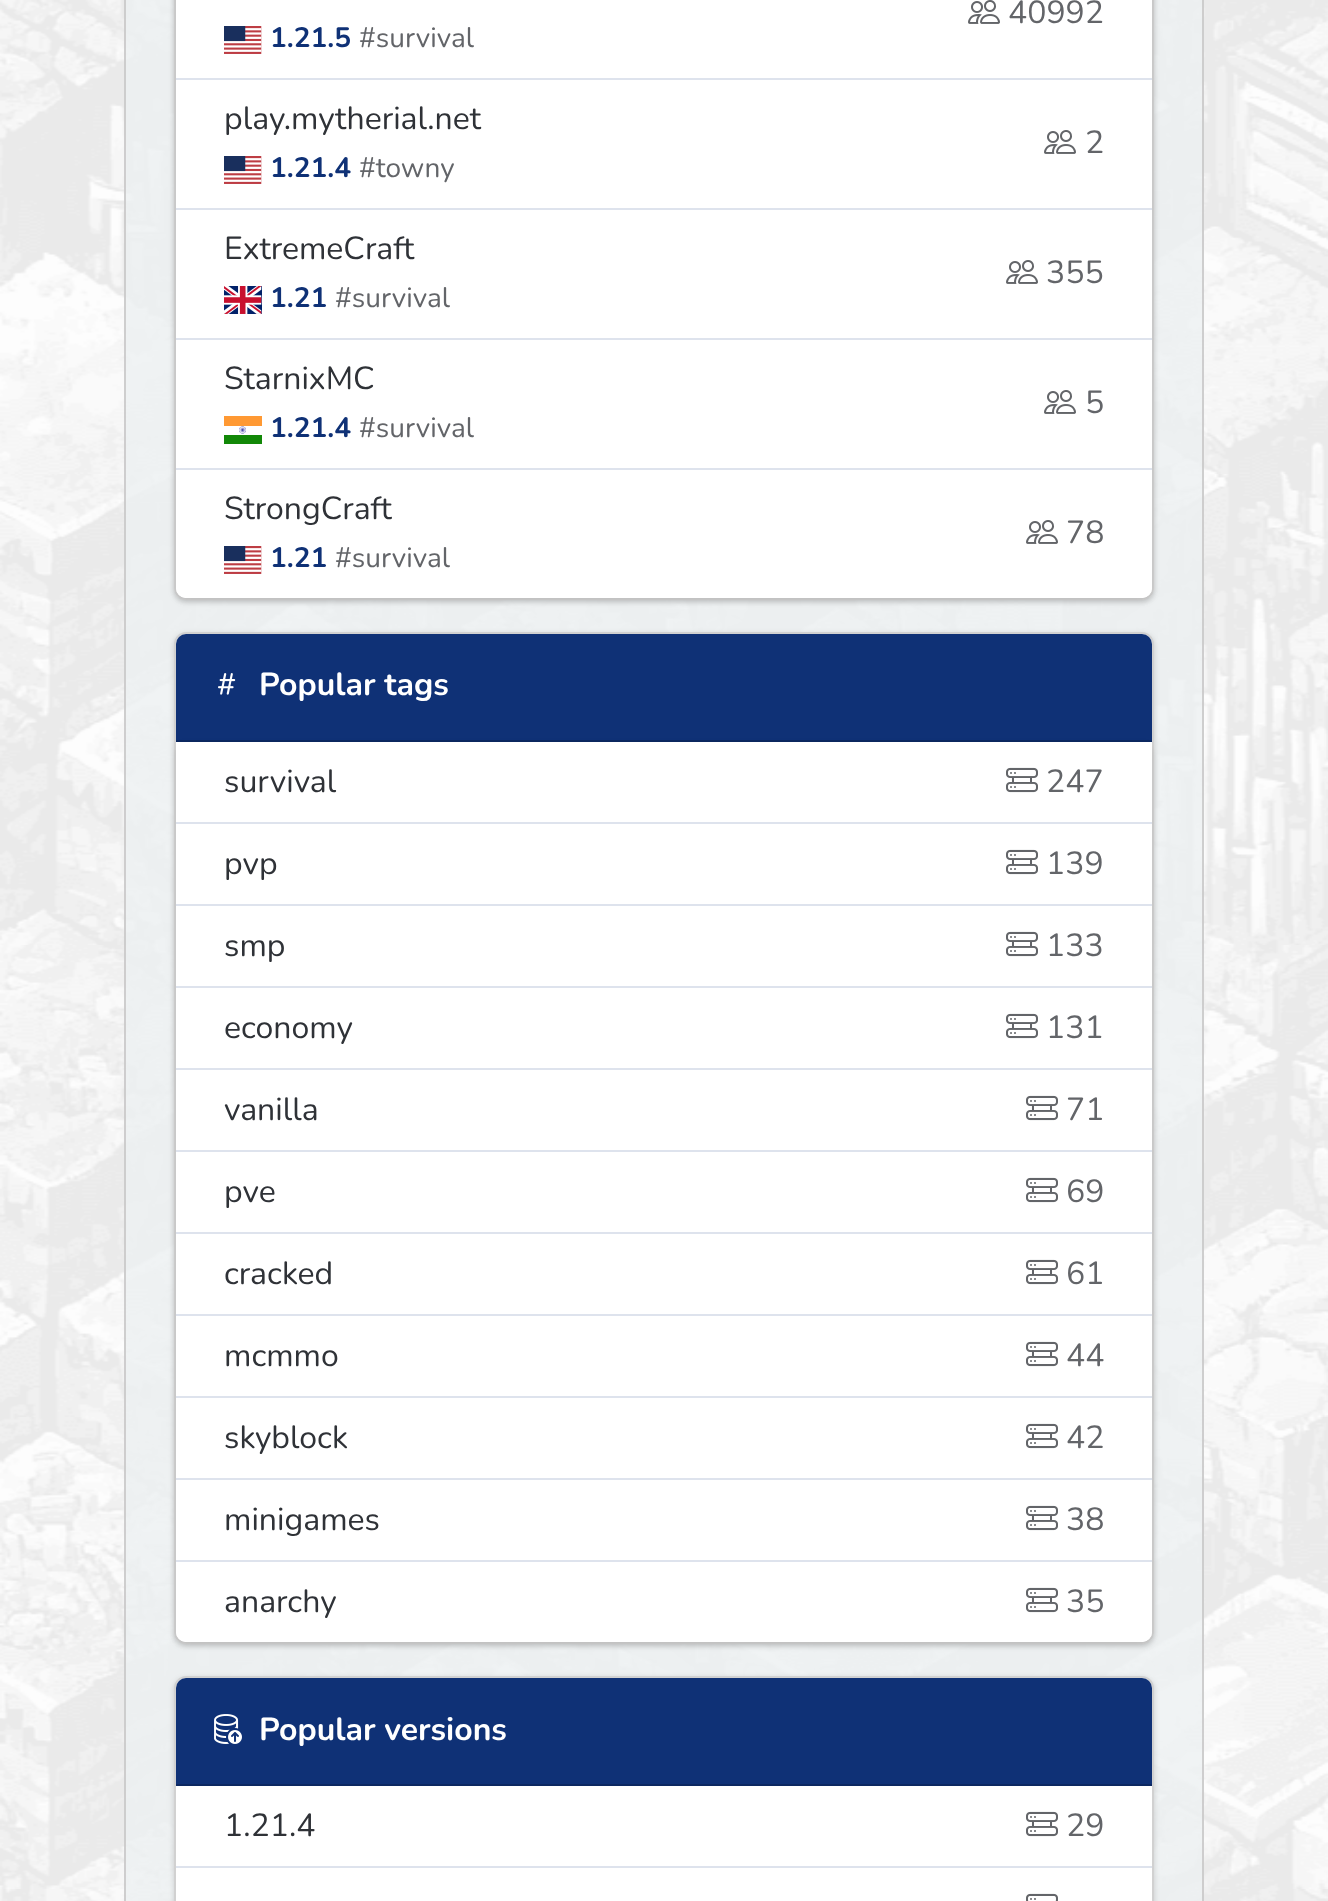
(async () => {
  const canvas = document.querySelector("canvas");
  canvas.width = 1328;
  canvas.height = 1901;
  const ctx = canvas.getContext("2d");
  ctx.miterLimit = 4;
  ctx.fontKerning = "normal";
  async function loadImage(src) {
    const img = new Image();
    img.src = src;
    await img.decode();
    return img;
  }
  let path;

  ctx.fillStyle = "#ffffff";
  ctx.fillRect(0, 0, 1328, 1901);
  ctx.drawImage(await loadImage("img/1.png"), 0, 0, 1328, 1901);
  ctx.fillStyle = "rgba(236, 240, 241, 0.8)";
  ctx.fillRect(124, 0, 1080, 1901);
  ctx.fillStyle = "rgba(197, 196, 196, 0.8)";
  path = new Path2D("M1204-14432V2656L1202 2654V-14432Z");
  ctx.fill(path);
  path = new Path2D("M124 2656V-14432H126V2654Z");
  ctx.fill(path);
  ctx.fillStyle = "rgba(0, 0, 0, 0.06)";
  ctx.filter = "blur(2px)";
  ctx.beginPath();
  ctx.roundRect(174, -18, 980, 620, 12);
  ctx.fill();
  ctx.filter = "none";
  ctx.fillStyle = "rgba(0, 0, 0, 0.1)";
  ctx.filter = "blur(3px)";
  ctx.beginPath();
  ctx.roundRect(174, -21, 980, 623, 12);
  ctx.fill();
  ctx.filter = "none";
  ctx.fillStyle = "#ffffff";
  ctx.beginPath();
  ctx.roundRect(174, -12, 980, 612, 12);
  ctx.fill();
  ctx.beginPath();
  ctx.roundRect(175, -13, 978, 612, 11);
  ctx.strokeStyle = "rgba(0, 0, 0, 0.18)";
  ctx.lineWidth = 2;
  ctx.stroke();
  ctx.save();
  path = new Path2D("M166 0H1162V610H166ZM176-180H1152V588C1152 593.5 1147.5 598 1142 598H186C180.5 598 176 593.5 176 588Z");
  ctx.clip(path, "evenodd");
  ctx.fillStyle = "rgba(0, 0, 0, 0.1)";
  ctx.filter = "blur(3px)";
  ctx.beginPath();
  ctx.roundRect(176, -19, 976, 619, 10);
  ctx.fill();
  ctx.filter = "none";
  ctx.restore();
  ctx.fillStyle = "#dee3ed";
  ctx.fillRect(176, 78, 976, 2);
  ctx.drawImage(await loadImage("img/2.png"), 968, 0, 32, 24);
  ctx.drawImage(await loadImage("img/3.png"), 224, 26, 38, 28);
  ctx.fillRect(176, 208, 976, 2);
  ctx.drawImage(await loadImage("img/3.png"), 224, 156, 38, 28);
  ctx.drawImage(await loadImage("img/2.png"), 1044, 130, 32, 24);
  ctx.fillRect(176, 338, 976, 2);
  ctx.drawImage(await loadImage("img/4.png"), 224, 286, 38, 28);
  ctx.drawImage(await loadImage("img/2.png"), 1006, 260, 32, 24);
  ctx.fillRect(176, 468, 976, 2);
  ctx.drawImage(await loadImage("img/5.png"), 224, 416, 38, 28);
  ctx.drawImage(await loadImage("img/2.png"), 1044, 390, 32, 24);
  ctx.fillStyle = "#ffffff";
  ctx.beginPath();
  ctx.roundRect(176, 470, 976, 128, [0, 0, 10, 10]);
  ctx.fill();
  ctx.drawImage(await loadImage("img/3.png"), 224, 546, 38, 28);
  ctx.drawImage(await loadImage("img/2.png"), 1026, 520, 32, 24);
  ctx.fillStyle = "rgba(0, 0, 0, 0.06)";
  ctx.filter = "blur(2px)";
  ctx.beginPath();
  ctx.roundRect(174, 634, 980, 1012, 12);
  ctx.fill();
  ctx.filter = "none";
  ctx.fillStyle = "rgba(0, 0, 0, 0.1)";
  ctx.filter = "blur(3px)";
  ctx.beginPath();
  ctx.roundRect(174, 634, 980, 1012, 12);
  ctx.fill();
  ctx.filter = "none";
  ctx.fillStyle = "#ffffff";
  ctx.beginPath();
  ctx.roundRect(174, 632, 980, 1012, 12);
  ctx.fill();
  ctx.beginPath();
  ctx.roundRect(175, 633, 978, 1010, 11);
  ctx.stroke();
  ctx.fillStyle = "#0f3176";
  ctx.beginPath();
  ctx.roundRect(176, 634, 976, 108, [10, 10, 0, 0]);
  ctx.fill();
  ctx.fillStyle = "#0c2861";
  ctx.fillRect(176, 740, 976, 2);
  ctx.drawImage(await loadImage("img/6.png"), 218, 673, 18, 22);
  ctx.save();
  path = new Path2D("M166 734H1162V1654H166ZM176 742H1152V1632C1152 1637.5 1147.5 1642 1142 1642H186C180.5 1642 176 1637.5 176 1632Z");
  ctx.clip(path, "evenodd");
  ctx.fillStyle = "rgba(0, 0, 0, 0.1)";
  ctx.filter = "blur(3px)";
  ctx.beginPath();
  ctx.roundRect(176, 744, 976, 900, 10);
  ctx.fill();
  ctx.filter = "none";
  ctx.restore();
  ctx.fillStyle = "#dee3ed";
  ctx.fillRect(176, 822, 976, 2);
  ctx.drawImage(await loadImage("img/7.png"), 1006, 767, 32, 26);
  ctx.fillRect(176, 904, 976, 2);
  ctx.drawImage(await loadImage("img/7.png"), 1006, 849, 32, 26);
  ctx.fillRect(176, 986, 976, 2);
  ctx.drawImage(await loadImage("img/7.png"), 1006, 931, 32, 26);
  ctx.fillRect(176, 1068, 976, 2);
  ctx.drawImage(await loadImage("img/7.png"), 1006, 1013, 32, 26);
  ctx.fillRect(176, 1150, 976, 2);
  ctx.drawImage(await loadImage("img/7.png"), 1026, 1095, 32, 26);
  ctx.fillRect(176, 1232, 976, 2);
  ctx.drawImage(await loadImage("img/7.png"), 1026, 1177, 32, 26);
  ctx.fillRect(176, 1314, 976, 2);
  ctx.drawImage(await loadImage("img/7.png"), 1026, 1259, 32, 26);
  ctx.fillRect(176, 1396, 976, 2);
  ctx.drawImage(await loadImage("img/7.png"), 1026, 1341, 32, 26);
  ctx.fillRect(176, 1478, 976, 2);
  ctx.drawImage(await loadImage("img/7.png"), 1026, 1423, 32, 26);
  ctx.fillRect(176, 1560, 976, 2);
  ctx.drawImage(await loadImage("img/7.png"), 1026, 1505, 32, 26);
  ctx.fillStyle = "#ffffff";
  ctx.beginPath();
  ctx.roundRect(176, 1562, 976, 80, [0, 0, 10, 10]);
  ctx.fill();
  ctx.drawImage(await loadImage("img/7.png"), 1026, 1587, 32, 26);
  ctx.fillStyle = "rgba(0, 0, 0, 0.06)";
  ctx.filter = "blur(2px)";
  ctx.beginPath();
  ctx.roundRect(174, 1678, 980, 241, 12);
  ctx.fill();
  ctx.filter = "none";
  ctx.fillStyle = "rgba(0, 0, 0, 0.1)";
  ctx.filter = "blur(3px)";
  ctx.beginPath();
  ctx.roundRect(174, 1678, 980, 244, 12);
  ctx.fill();
  ctx.filter = "none";
  ctx.fillStyle = "#ffffff";
  ctx.beginPath();
  ctx.roundRect(174, 1676, 980, 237, 12);
  ctx.fill();
  ctx.beginPath();
  ctx.roundRect(175, 1677, 978, 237, 11);
  ctx.stroke();
  ctx.fillStyle = "#0f3176";
  ctx.beginPath();
  ctx.roundRect(176, 1678, 976, 108, [10, 10, 0, 0]);
  ctx.fill();
  ctx.fillStyle = "#0c2861";
  ctx.fillRect(176, 1784, 976, 2);
  ctx.drawImage(await loadImage("img/8.png"), 214, 1714, 28, 30);
  ctx.fillStyle = "#dee3ed";
  ctx.fillRect(176, 1866, 976, 2);
  ctx.drawImage(await loadImage("img/7.png"), 1026, 1811, 32, 26);
  ctx.drawImage(await loadImage("img/9.png"), 1026, 1893, 32, 8);
  ctx.font = "32px Nunito";
  ctx.fillStyle = "#636569";
  ctx.fillText("40992", 1008, 23);
  ctx.font = "bold 28px Nunito";
  ctx.fillStyle = "#0f3176";
  ctx.fillText("1.21.5", 270, 47);
  ctx.font = "28px Nunito";
  ctx.fillStyle = "#636569";
  ctx.fillText("#survival", 359, 47);
  ctx.font = "32px Nunito";
  ctx.fillStyle = "#2f3237";
  ctx.fillText("play.mytherial.net", 224, 129);
  ctx.font = "bold 28px Nunito";
  ctx.fillStyle = "#0f3176";
  ctx.fillText("1.21.4", 270, 177);
  ctx.font = "28px Nunito";
  ctx.fillStyle = "#636569";
  ctx.fillText("#towny", 359, 177);
  ctx.font = "32px Nunito";
  ctx.fillText("2", 1085, 153);
  ctx.fillStyle = "#2f3237";
  ctx.fillText("ExtremeCraft", 224, 259);
  ctx.font = "bold 28px Nunito";
  ctx.fillStyle = "#0f3176";
  ctx.fillText("1.21", 270, 307);
  ctx.font = "28px Nunito";
  ctx.fillStyle = "#636569";
  ctx.fillText("#survival", 335, 307);
  ctx.font = "32px Nunito";
  ctx.fillText("355", 1046, 283);
  ctx.fillStyle = "#2f3237";
  ctx.fillText("StarnixMC", 224, 389);
  ctx.font = "bold 28px Nunito";
  ctx.fillStyle = "#0f3176";
  ctx.fillText("1.21.4", 270, 437);
  ctx.font = "28px Nunito";
  ctx.fillStyle = "#636569";
  ctx.fillText("#survival", 359, 437);
  ctx.font = "32px Nunito";
  ctx.fillText("5", 1085, 413);
  ctx.fillStyle = "#2f3237";
  ctx.fillText("StrongCraft", 224, 519);
  ctx.font = "bold 28px Nunito";
  ctx.fillStyle = "#0f3176";
  ctx.fillText("1.21", 270, 567);
  ctx.font = "28px Nunito";
  ctx.fillStyle = "#636569";
  ctx.fillText("#survival", 335, 567);
  ctx.font = "32px Nunito";
  ctx.fillText("78", 1066, 543);
  ctx.font = "bold 32px Nunito";
  ctx.fillStyle = "#ffffff";
  ctx.fillText("Popular tags", 259, 695);
  ctx.font = "32px Nunito";
  ctx.fillStyle = "#2f3237";
  ctx.fillText("survival", 224, 792);
  ctx.fillStyle = "#636569";
  ctx.fillText("247", 1046, 792);
  ctx.fillStyle = "#2f3237";
  ctx.fillText("pvp", 224, 874);
  ctx.fillStyle = "#636569";
  ctx.fillText("139", 1046, 874);
  ctx.fillStyle = "#2f3237";
  ctx.fillText("smp", 224, 956);
  ctx.fillStyle = "#636569";
  ctx.fillText("133", 1046, 956);
  ctx.fillStyle = "#2f3237";
  ctx.fillText("economy", 224, 1038);
  ctx.fillStyle = "#636569";
  ctx.fillText("131", 1046, 1038);
  ctx.fillStyle = "#2f3237";
  ctx.fillText("vanilla", 224, 1120);
  ctx.fillStyle = "#636569";
  ctx.fillText("71", 1066, 1120);
  ctx.fillStyle = "#2f3237";
  ctx.fillText("pve", 224, 1202);
  ctx.fillStyle = "#636569";
  ctx.fillText("69", 1066, 1202);
  ctx.fillStyle = "#2f3237";
  ctx.fillText("cracked", 224, 1284);
  ctx.fillStyle = "#636569";
  ctx.fillText("61", 1066, 1284);
  ctx.fillStyle = "#2f3237";
  ctx.fillText("mcmmo", 224, 1366);
  ctx.fillStyle = "#636569";
  ctx.fillText("44", 1066, 1366);
  ctx.fillStyle = "#2f3237";
  ctx.fillText("skyblock", 224, 1448);
  ctx.fillStyle = "#636569";
  ctx.fillText("42", 1066, 1448);
  ctx.fillStyle = "#2f3237";
  ctx.fillText("minigames", 224, 1530);
  ctx.fillStyle = "#636569";
  ctx.fillText("38", 1066, 1530);
  ctx.fillStyle = "#2f3237";
  ctx.fillText("anarchy", 224, 1612);
  ctx.fillStyle = "#636569";
  ctx.fillText("35", 1066, 1612);
  ctx.font = "bold 32px Nunito";
  ctx.fillStyle = "#ffffff";
  ctx.fillText("Popular versions", 259, 1740);
  ctx.font = "32px Nunito";
  ctx.fillStyle = "#2f3237";
  ctx.fillText("1.21.4", 224, 1836);
  ctx.fillStyle = "#636569";
  ctx.fillText("29", 1066, 1836);
})();
